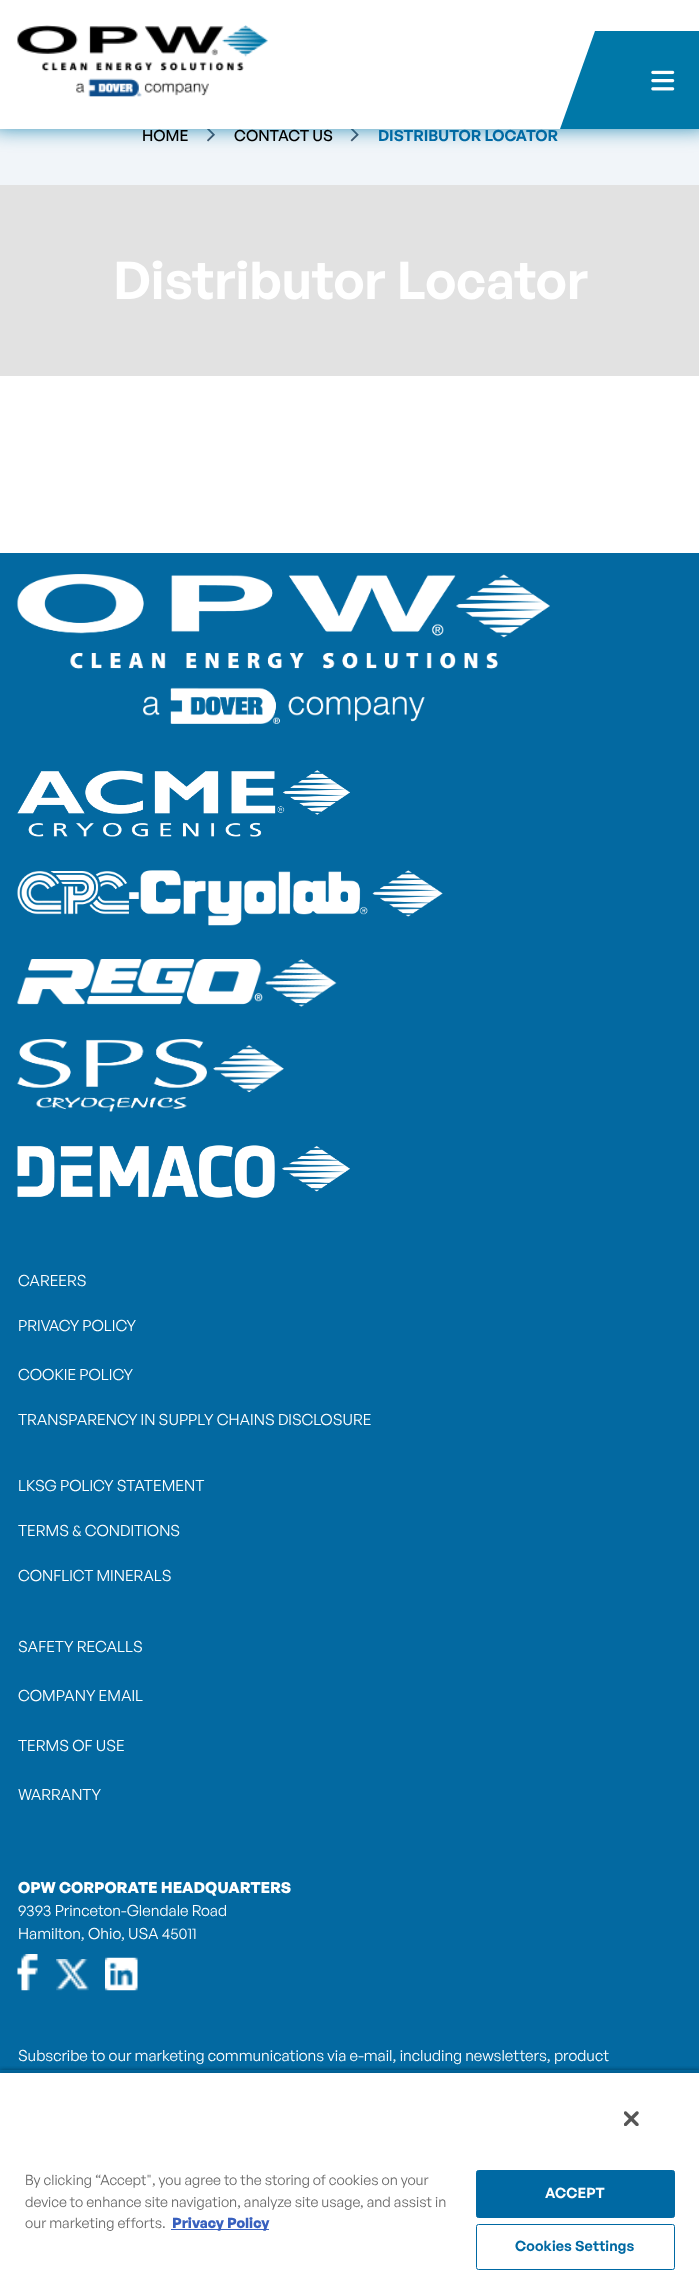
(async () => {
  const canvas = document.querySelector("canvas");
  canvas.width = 699;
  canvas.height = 2287;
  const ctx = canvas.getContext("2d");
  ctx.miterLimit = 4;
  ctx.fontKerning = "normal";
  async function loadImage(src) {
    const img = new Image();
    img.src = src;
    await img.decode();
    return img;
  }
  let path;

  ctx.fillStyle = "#ffffff";
  ctx.fillRect(0, 0, 699, 2287);
  ctx.fillStyle = "#f1f5f9";
  ctx.fillRect(0, 129, 699, 56);
  ctx.drawImage(await loadImage("img/3.png"), 207, 129, 8, 13);
  ctx.drawImage(await loadImage("img/4.png"), 350, 129, 9, 13);
  ctx.save();
  path = new Path2D("M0 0H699V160H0ZM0 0H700V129H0Z");
  ctx.clip(path, "evenodd");
  ctx.fillStyle = "#0078a8";
  ctx.filter = "blur(11px)";
  ctx.beginPath();
  ctx.rect(-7, -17, 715, 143);
  ctx.fill();
  ctx.filter = "none";
  ctx.restore();
  ctx.drawImage(await loadImage("img/1.png"), 17, 25, 251, 72);
  ctx.fillStyle = "#0078a8";
  path = new Path2D("M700 129V31H595L560 129Z");
  ctx.fill(path);
  ctx.drawImage(await loadImage("img/2.png"), 651, 70, 24, 21);
  ctx.fillStyle = "#e2e2e2";
  ctx.fillRect(0, 185, 699, 191);
  ctx.fillStyle = "#0369a1";
  ctx.fillRect(0, 553, 699, 1520);
  ctx.drawImage(await loadImage("img/5.png"), 17, 574, 533, 150);
  ctx.drawImage(await loadImage("img/6.png"), 17, 770, 333, 67);
  ctx.drawImage(await loadImage("img/7.png"), 17, 870, 426, 56);
  ctx.drawImage(await loadImage("img/8.png"), 17, 959, 320, 48);
  ctx.drawImage(await loadImage("img/9.png"), 17, 1039, 267, 73);
  ctx.drawImage(await loadImage("img/10.png"), 17, 1145, 333, 53);
  ctx.drawImage(await loadImage("img/11.png"), 17, 1954, 21, 37);
  ctx.drawImage(await loadImage("img/12.png"), 56, 1959, 33, 32);
  ctx.drawImage(await loadImage("img/13.png"), 105, 1957, 33, 34);
  ctx.save();
  ctx.beginPath();
  ctx.rect(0, 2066, 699, 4);
  ctx.clip();
  ctx.fillStyle = "rgba(0, 0, 0, 0.35)";
  ctx.filter = "blur(2.5px)";
  ctx.beginPath();
  ctx.rect(0, 2070, 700, 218);
  ctx.fill();
  ctx.filter = "none";
  ctx.restore();
  ctx.fillStyle = "rgba(0, 0, 0, 0.2)";
  ctx.filter = "blur(2.5px)";
  ctx.beginPath();
  ctx.rect(0, 2073, 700, 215);
  ctx.fill();
  ctx.filter = "none";
  ctx.fillStyle = "#ffffff";
  ctx.fillRect(0, 2073, 699, 214);
  ctx.drawImage(await loadImage("img/14.png"), 624, 2111, 15, 15);
  ctx.fillStyle = "#3860be";
  ctx.fillRect(171, 2229, 98, 1);
  ctx.fillStyle = "#0069a3";
  ctx.beginPath();
  ctx.roundRect(476.5, 2170.5, 198, 47, 2);
  ctx.fill();
  ctx.strokeStyle = "#0069a3";
  ctx.stroke();
  ctx.beginPath();
  ctx.roundRect(476.5, 2224.5, 198, 45, 2);
  ctx.stroke();
  ctx.font = "500 15.3px General Sans";
  ctx.fillStyle = "#000000";
  ctx.fillText("HOME", 142, 141);
  ctx.fillText("CONTACT US", 234, 141);
  ctx.font = "600 15.3px General Sans";
  ctx.fillStyle = "#0069a3";
  ctx.fillText("DISTRIBUTOR LOCATOR", 378, 141);
  ctx.font = "600 52px General Sans";
  ctx.fillStyle = "#ffffff";
  ctx.fillText("Distributor Locator", 113, 299);
  ctx.font = "15.3px General Sans";
  for (const [text, x, y] of [
    ["CAREERS", 18, 1286],
    ["PRIVACY POLICY", 18, 1331],
    ["COOKIE POLICY", 18, 1380],
    ["TRANSPARENCY IN SUPPLY CHAINS DISCLOSURE", 18, 1425],
    ["LKSG POLICY STATEMENT", 18, 1491],
    ["TERMS & CONDITIONS", 18, 1536],
    ["CONFLICT MINERALS", 18, 1581],
    ["SAFETY RECALLS", 18, 1652],
    ["COMPANY EMAIL", 18, 1701],
    ["TERMS OF USE", 18, 1751],
    ["WARRANTY", 18, 1800],
  ]) {
    ctx.fillText(text, x, y);
  }
  ctx.font = "bold 15.3px General Sans";
  ctx.fillText("OPW CORPORATE HEADQUARTERS", 18, 1893);
  ctx.font = "15.3px General Sans";
  for (const [text, x, y] of [
    ["9393 Princeton-Glendale Road", 18, 1916],
    ["Hamilton, Ohio, USA 45011", 18, 1939],
    ["Subscribe to our marketing communications via e-mail, including newsletters, product", 18, 2061],
  ]) {
    ctx.fillText(text, x, y);
  }
  ctx.font = "14.25px General Sans";
  ctx.fillStyle = "#696969";
  for (const [text, x, y] of [
    ["By clicking “Accept\", you agree to the storing of cookies on your", 25, 2185],
    ["device to enhance site navigation, analyze site usage, and assist in", 25, 2207],
    ["our marketing efforts.", 25, 2228],
  ]) {
    ctx.fillText(text, x, y);
  }
  ctx.font = "bold 14.25px General Sans";
  ctx.fillStyle = "#3860be";
  ctx.fillText("Privacy Policy", 172, 2228);
  ctx.letterSpacing = "0.1px";
  ctx.font = "600 14.25px General Sans";
  ctx.fillStyle = "#ffffff";
  ctx.fillText("ACCEPT", 545, 2198);
  ctx.fillStyle = "#0069a3";
  ctx.fillText("Cookies Settings", 515, 2251);
})();
